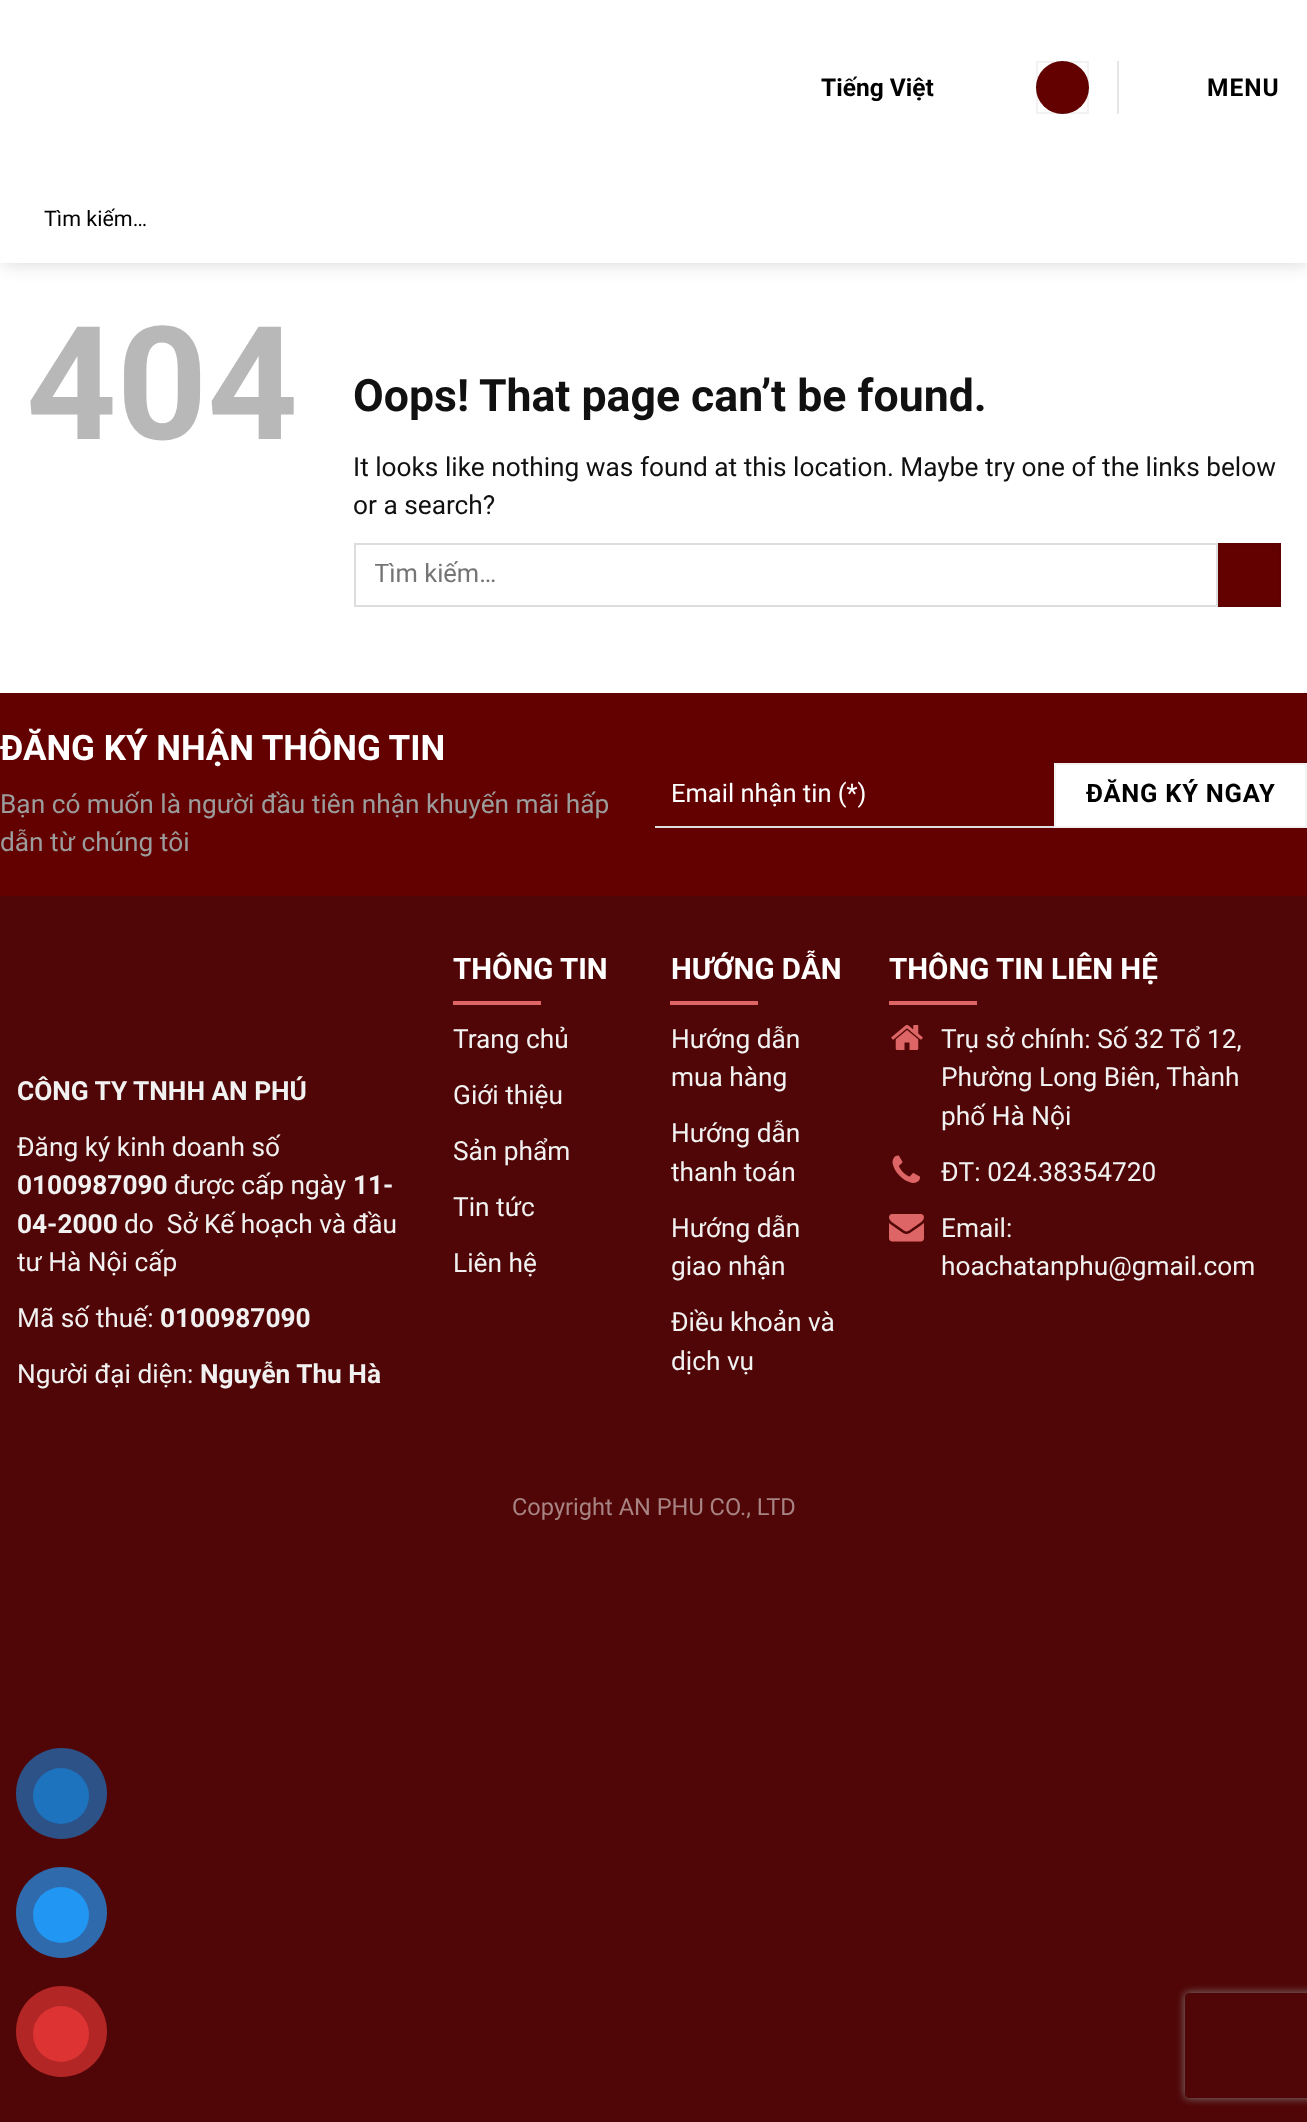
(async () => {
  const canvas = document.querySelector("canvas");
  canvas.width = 1307;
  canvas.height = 2122;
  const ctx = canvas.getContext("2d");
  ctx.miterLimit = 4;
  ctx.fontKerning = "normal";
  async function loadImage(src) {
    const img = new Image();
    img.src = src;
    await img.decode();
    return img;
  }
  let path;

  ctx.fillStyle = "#500606";
  ctx.fillRect(0, 0, 1307, 2122);
  ctx.fillStyle = "#ffffff";
  ctx.fillRect(0, 0, 1307, 693);
  ctx.save();
  path = new Path2D("M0 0H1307V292H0ZM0 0H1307V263H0Z");
  ctx.clip(path, "evenodd");
  ctx.fillStyle = "rgba(0, 0, 0, 0.15)";
  ctx.filter = "blur(9px)";
  ctx.beginPath();
  ctx.rect(2, 2, 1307, 262);
  ctx.fill();
  ctx.filter = "none";
  ctx.restore();
  ctx.fillStyle = "#630000";
  ctx.beginPath();
  ctx.arc(1062.5, 87.5, 26.5, 0, Math.PI * 2);
  ctx.fill();
  ctx.strokeStyle = "rgba(0, 0, 0, 0.05)";
  ctx.lineWidth = 2;
  ctx.strokeRect(1037, 62, 51, 51);
  ctx.fillStyle = "#e6e6e6";
  ctx.fillRect(1117, 61, 2, 53);
  ctx.fillStyle = "rgba(255, 255, 255, 0.9)";
  ctx.fillRect(0, 262, 1307, 1);
  ctx.strokeStyle = "#dddddd";
  ctx.strokeRect(355, 544, 862, 62);
  ctx.fillStyle = "#630000";
  ctx.beginPath();
  ctx.rect(1219, 544, 61, 62);
  ctx.fill();
  ctx.strokeStyle = "#5e0000";
  ctx.stroke();
  ctx.fillRect(0, 693, 1307, 203);
  ctx.fillStyle = "#dddddd";
  ctx.fillRect(655, 826, 399, 2);
  ctx.fillStyle = "#ffffff";
  ctx.beginPath();
  ctx.rect(1055, 764, 251, 63);
  ctx.fill();
  ctx.strokeStyle = "#f2f2f2";
  ctx.stroke();
  for (const [x, y, w, h, color] of [
    [453, 1001, 88, 4, "#dd6565"],
    [670, 1001, 88, 4, "#dd6565"],
    [889, 1001, 88, 4, "#dd6565"],
  ]) {
    ctx.fillStyle = color;
    ctx.fillRect(x, y, w, h);
  }
  ctx.drawImage(await loadImage("img/1.png"), 891, 1025, 32, 25);
  ctx.drawImage(await loadImage("img/2.png"), 892, 1155, 28, 28);
  ctx.drawImage(await loadImage("img/3.png"), 889, 1214, 35, 28);
  ctx.fillStyle = "#2d5287";
  ctx.beginPath();
  ctx.arc(61.5, 1793.5, 45.5, 0, Math.PI * 2);
  ctx.fill();
  ctx.fillStyle = "#1e73be";
  ctx.beginPath();
  ctx.arc(61, 1796, 28, 0, Math.PI * 2);
  ctx.fill();
  ctx.fillStyle = "#2f6bac";
  ctx.beginPath();
  ctx.arc(61.5, 1912.5, 45.5, 0, Math.PI * 2);
  ctx.fill();
  ctx.fillStyle = "#2196f3";
  ctx.beginPath();
  ctx.arc(61, 1915, 28, 0, Math.PI * 2);
  ctx.fill();
  ctx.fillStyle = "#b32626";
  ctx.beginPath();
  ctx.arc(61.5, 2031.5, 45.5, 0, Math.PI * 2);
  ctx.fill();
  ctx.fillStyle = "#dd3333";
  ctx.beginPath();
  ctx.arc(61, 2034, 28, 0, Math.PI * 2);
  ctx.fill();
  ctx.save();
  path = new Path2D("M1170 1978H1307V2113H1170ZM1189 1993H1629C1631 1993 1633 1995 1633 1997V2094C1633 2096 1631 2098 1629 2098H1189C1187 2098 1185 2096 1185 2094V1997C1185 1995 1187 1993 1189 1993Z");
  ctx.clip(path, "evenodd");
  ctx.fillStyle = "#808080";
  ctx.filter = "blur(4.5px)";
  ctx.beginPath();
  ctx.roundRect(1185, 1993, 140, 105, 4);
  ctx.fill();
  ctx.filter = "none";
  ctx.restore();
  ctx.font = "bold 24.5px Roboto";
  ctx.fillStyle = "#000000";
  ctx.fillText("Tiếng Việt", 821, 96);
  ctx.letterSpacing = "1px";
  ctx.fillText("MENU", 1207, 96);
  ctx.letterSpacing = "0px";
  ctx.font = "21.5px Roboto";
  ctx.fillText("Tìm kiếm…", 44, 226);
  ctx.font = "bold 158px Roboto";
  ctx.fillStyle = "#b8b8b8";
  ctx.fillText("404", 26, 439);
  ctx.font = "bold 44.6px Roboto";
  ctx.fillStyle = "#111111";
  ctx.fillText("Oops! That page can’t be found.", 353, 411);
  ctx.font = "26.25px Roboto";
  ctx.fillText("It looks like nothing was found at this location. Maybe try one of the links below", 353, 476);
  ctx.fillText("or a search?", 353, 514);
  ctx.save();
  ctx.beginPath();
  ctx.rect(375, 560, 815, 30);
  ctx.clip();
  ctx.font = "25.5px Roboto";
  ctx.fillStyle = "#757575";
  ctx.fillText("Tìm kiếm…", 374, 582);
  ctx.restore();
  ctx.font = "bold 35px Roboto";
  ctx.fillStyle = "#ffffff";
  ctx.fillText("ĐĂNG KÝ NHẬN THÔNG TIN", 0, 760);
  ctx.font = "26.25px Roboto";
  ctx.fillStyle = "#9c9c9c";
  ctx.fillText("Bạn có muốn là người đầu tiên nhận khuyến mãi hấp", 0, 813);
  ctx.fillText("dẫn từ chúng tôi", 0, 851);
  ctx.font = "25.5px Roboto";
  ctx.fillStyle = "#ffffff";
  ctx.fillText("Email nhận tin (*)", 671, 802);
  ctx.letterSpacing = "0.75px";
  ctx.font = "bold 25.5px Roboto";
  ctx.fillStyle = "#000000";
  ctx.fillText("ĐĂNG KÝ NGAY", 1086, 802);
  ctx.letterSpacing = "0px";
  ctx.font = "bold 26.25px Roboto";
  ctx.fillStyle = "#f1f1f1";
  ctx.fillText("CÔNG TY TNHH AN PHÚ", 17, 1100);
  ctx.font = "26.25px Roboto";
  ctx.fillText("Đăng ký kinh doanh số", 17, 1156);
  ctx.font = "bold 26.25px Roboto";
  ctx.fillText("0100987090", 17, 1194);
  ctx.font = "26.25px Roboto";
  ctx.fillText("được cấp ngày", 174, 1194);
  ctx.font = "bold 26.25px Roboto";
  ctx.fillText("11-", 353, 1194);
  ctx.fillText("04-2000", 17, 1233);
  ctx.font = "26.25px Roboto";
  for (const [text, x, y] of [
    ["do  Sở Kế hoạch và đầu", 124, 1233],
    ["tư Hà Nội cấp", 17, 1271],
    ["Mã số thuế:", 17, 1327],
  ]) {
    ctx.fillText(text, x, y);
  }
  ctx.font = "bold 26.25px Roboto";
  ctx.fillText("0100987090", 160, 1327);
  ctx.font = "26.25px Roboto";
  ctx.fillText("Người đại diện:", 17, 1383);
  ctx.font = "bold 26.25px Roboto";
  ctx.fillText("Nguyễn Thu Hà", 200, 1383);
  ctx.font = "bold 29.5px Roboto";
  ctx.fillStyle = "#ffffff";
  ctx.fillText("THÔNG TIN", 453, 979);
  ctx.font = "26.25px Roboto";
  ctx.fillStyle = "#f1f1f1";
  for (const [text, x, y] of [
    ["Trang chủ", 453, 1048],
    ["Giới thiệu", 453, 1104],
    ["Sản phẩm", 453, 1160],
    ["Tin tức", 453, 1216],
    ["Liên hệ", 453, 1272],
  ]) {
    ctx.fillText(text, x, y);
  }
  ctx.font = "bold 29.5px Roboto";
  ctx.fillStyle = "#ffffff";
  ctx.fillText("HƯỚNG DẪN", 671, 979);
  ctx.font = "26.25px Roboto";
  ctx.fillStyle = "#f1f1f1";
  for (const [text, x, y] of [
    ["Hướng dẫn", 671, 1048],
    ["mua hàng", 671, 1086],
    ["Hướng dẫn", 671, 1142],
    ["thanh toán", 671, 1181],
    ["Hướng dẫn", 671, 1237],
    ["giao nhận", 671, 1275],
    ["Điều khoản và", 671, 1331],
    ["dịch vụ", 671, 1370],
  ]) {
    ctx.fillText(text, x, y);
  }
  ctx.font = "bold 29.5px Roboto";
  ctx.fillStyle = "#ffffff";
  ctx.fillText("THÔNG TIN LIÊN HỆ", 889, 979);
  ctx.font = "26.25px Roboto";
  ctx.fillStyle = "#f1f1f1";
  for (const [text, x, y] of [
    ["Trụ sở chính: Số 32 Tổ 12,", 941, 1048],
    ["Phường Long Biên, Thành", 941, 1086],
    ["phố Hà Nội", 941, 1125],
    ["ĐT: 024.38354720", 941, 1181],
    ["Email:", 941, 1237],
    ["hoachatanphu@gmail.com", 941, 1275],
  ]) {
    ctx.fillText(text, x, y);
  }
  ctx.font = "23.6px Roboto";
  ctx.fillStyle = "#a88383";
  ctx.fillText("Copyright AN PHU CO., LTD", 512, 1515);
})();
